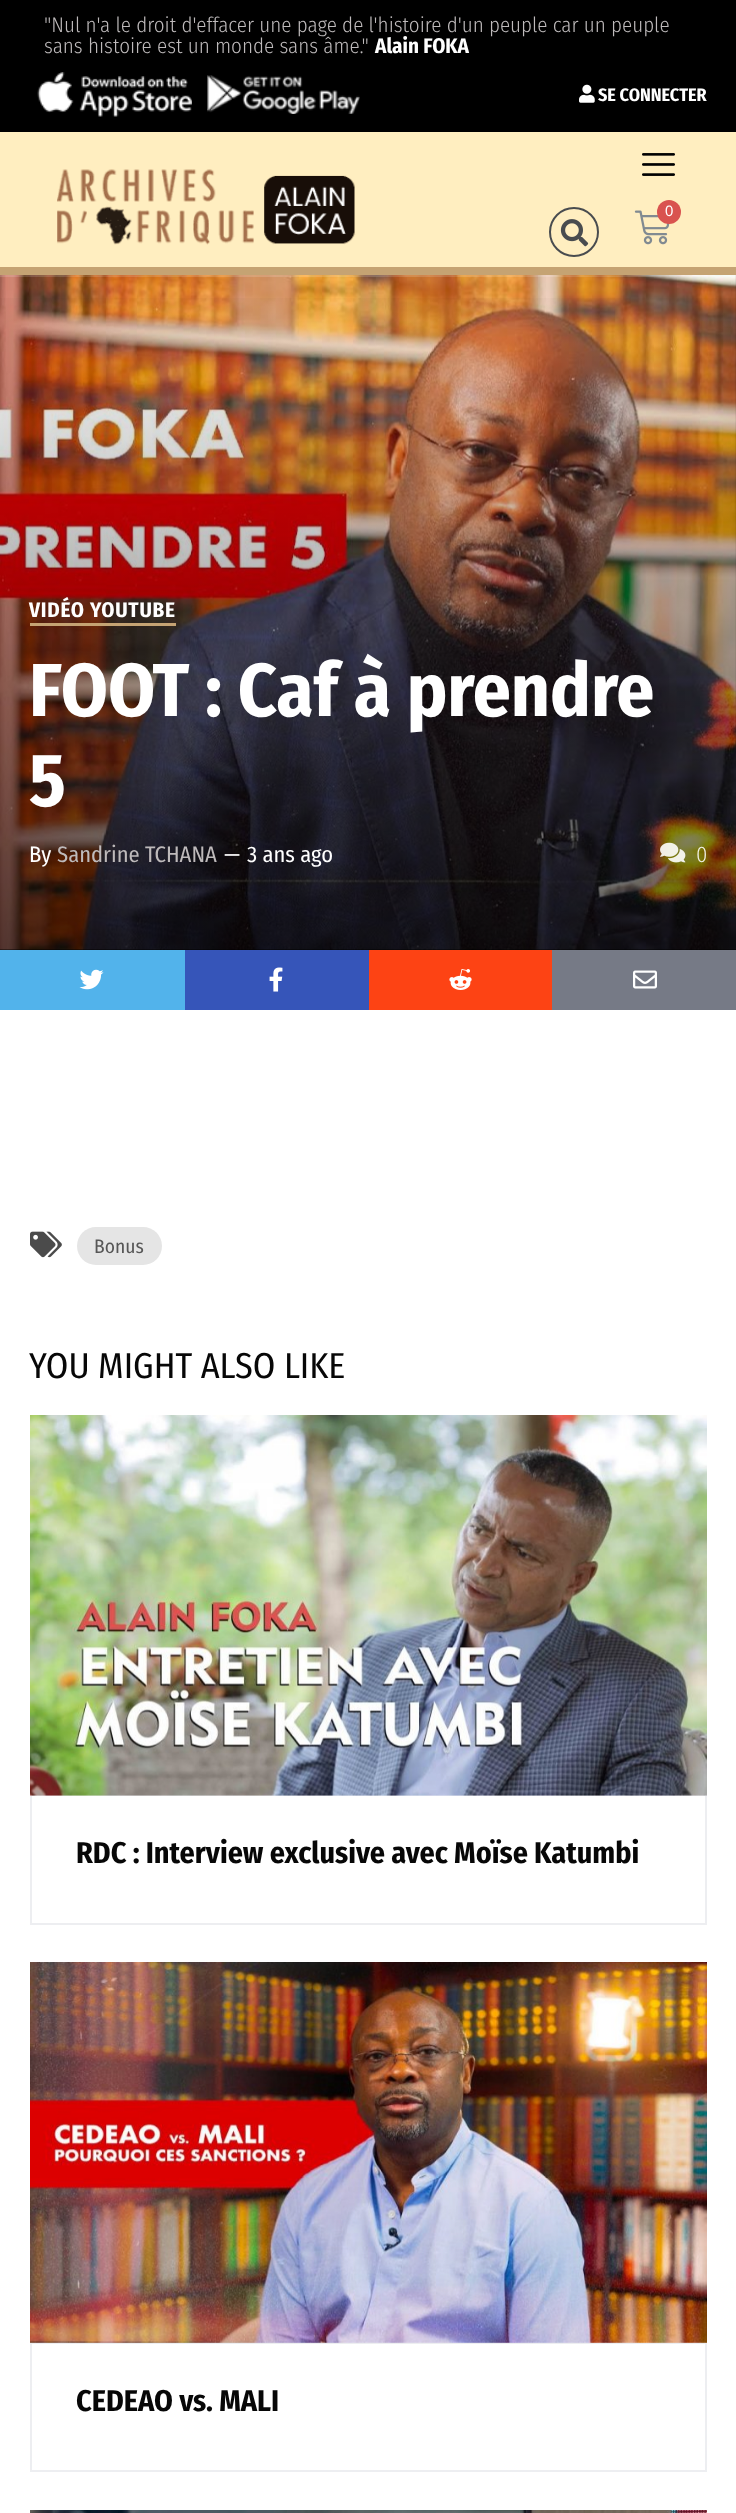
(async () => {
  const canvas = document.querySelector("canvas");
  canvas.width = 736;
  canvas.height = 2513;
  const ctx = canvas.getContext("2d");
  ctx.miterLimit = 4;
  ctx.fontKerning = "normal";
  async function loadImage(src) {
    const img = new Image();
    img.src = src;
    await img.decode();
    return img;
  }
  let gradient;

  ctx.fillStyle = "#ffffff";
  ctx.fillRect(0, 0, 736, 2513);
  ctx.fillStyle = "#000000";
  ctx.fillRect(0, 0, 736, 132);
  ctx.drawImage(await loadImage("img/1.png"), 37, 72, 155, 45);
  ctx.drawImage(await loadImage("img/2.png"), 207, 75, 153, 39);
  ctx.drawImage(await loadImage("img/3.png"), 579, 84, 16, 19);
  ctx.fillStyle = "#ffeec0";
  ctx.fillRect(0, 132, 736, 135);
  ctx.fillStyle = "#c5a373";
  ctx.fillRect(0, 267, 736, 8);
  ctx.drawImage(await loadImage("img/4.png"), 57, 169, 299, 76);
  ctx.drawImage(await loadImage("img/5.png"), 642, 153, 33, 23);
  ctx.beginPath();
  ctx.arc(574, 232, 24, 0, Math.PI * 2);
  ctx.strokeStyle = "#494c4f";
  ctx.lineWidth = 2;
  ctx.stroke();
  ctx.drawImage(await loadImage("img/6.png"), 560, 219, 29, 28);
  ctx.drawImage(await loadImage("img/7.png"), 634, 210, 36, 35);
  ctx.fillStyle = "#d9534f";
  ctx.beginPath();
  ctx.arc(669, 212, 12, 0, Math.PI * 2);
  ctx.fill();
  ctx.fillStyle = "#000000";
  ctx.fillRect(0, 275, 736, 675);
  ctx.drawImage(await loadImage("img/8.png"), 0, 275, 736, 675);
  ctx.fillStyle = "rgba(255, 255, 255, 0.15)";
  ctx.fillRect(0, 275, 736, 2);
  gradient = ctx.createLinearGradient(368, 274, 368, 950);
  gradient.addColorStop(0, "rgba(0, 0, 0, 0)");
  gradient.addColorStop(1, "rgba(0, 0, 0, 0.6)");
  ctx.fillStyle = gradient;
  ctx.fillRect(0, 298, 736, 652);
  ctx.fillStyle = "#c5a373";
  ctx.fillRect(30, 623, 146, 3);
  ctx.drawImage(await loadImage("img/9.png"), 660, 842, 26, 21);
  ctx.fillStyle = "#52b3eb";
  ctx.fillRect(0, 950, 185, 60);
  ctx.drawImage(await loadImage("img/10.png"), 79, 969, 25, 21);
  ctx.fillStyle = "#3655b9";
  ctx.fillRect(185, 950, 184, 60);
  ctx.drawImage(await loadImage("img/11.png"), 269, 967, 14, 25);
  ctx.fillStyle = "#fd4314";
  ctx.fillRect(369, 950, 183, 60);
  ctx.drawImage(await loadImage("img/12.png"), 449, 969, 23, 21);
  ctx.fillStyle = "#767a86";
  ctx.fillRect(552, 950, 184, 60);
  ctx.drawImage(await loadImage("img/13.png"), 633, 970, 24, 19);
  ctx.drawImage(await loadImage("img/14.png"), 30, 1231, 32, 27);
  ctx.fillStyle = "#e5e5e5";
  ctx.beginPath();
  ctx.roundRect(77, 1227, 85, 38, 19);
  ctx.fill();
  ctx.strokeStyle = "#edeef1";
  ctx.strokeRect(31, 1795, 675, 129);
  ctx.drawImage(await loadImage("img/15.png"), 30, 1415, 677, 381);
  ctx.strokeRect(31, 2343, 675, 128);
  ctx.drawImage(await loadImage("img/16.png"), 30, 1962, 677, 381);
  ctx.drawImage(await loadImage("img/17.png"), 30, 2510, 677, 3);
  ctx.font = "300 21px Fira Sans Condensed";
  ctx.fillStyle = "#bebabb";
  ctx.fillText("\"Nul n'a le droit d'effacer une page de l'histoire d'un peuple car un peuple", 44, 32);
  ctx.fillText("sans histoire est un monde sans âme.\"", 44, 53);
  ctx.font = "bold 21px Fira Sans Condensed";
  ctx.fillStyle = "#ffffff";
  ctx.fillText("Alain FOKA", 375, 53);
  ctx.font = "bold 18px Fira Sans Condensed";
  ctx.fillText("SE CONNECTER", 598, 101);
  ctx.font = "15px Arimo";
  ctx.fillText("0", 665, 216);
  ctx.letterSpacing = "0.75px";
  ctx.font = "bold 21px Fira Sans Condensed";
  ctx.fillText("VIDÉO YOUTUBE", 29, 617);
  ctx.letterSpacing = "0px";
  ctx.font = "bold 75px Fira Sans Condensed";
  ctx.fillText("FOOT : Caf à prendre", 29, 716);
  ctx.fillText("5", 29, 806);
  ctx.font = "22.5px Fira Sans Condensed";
  ctx.fillText("By", 29, 862);
  ctx.fillStyle = "#bebabb";
  ctx.fillText("Sandrine TCHANA", 57, 862);
  ctx.fillStyle = "#ffffff";
  ctx.fillText("—", 224, 862);
  ctx.fillText("3 ans ago", 247, 862);
  ctx.font = "300 22.5px Fira Sans Condensed";
  ctx.fillStyle = "#f2f1e7";
  ctx.fillText("0", 696, 862);
  ctx.font = "19.5px Fira Sans Condensed";
  ctx.fillStyle = "#575757";
  ctx.fillText("Bonus", 94, 1253);
  ctx.font = "36px Fira Sans Condensed";
  ctx.fillStyle = "#070707";
  ctx.fillText("YOU MIGHT ALSO LIKE", 29, 1378);
  ctx.font = "bold 30px Fira Sans Condensed";
  ctx.fillText("RDC : Interview exclusive avec Moïse Katumbi", 76, 1863);
  ctx.fillText("CEDEAO vs. MALI", 76, 2411);
})();
